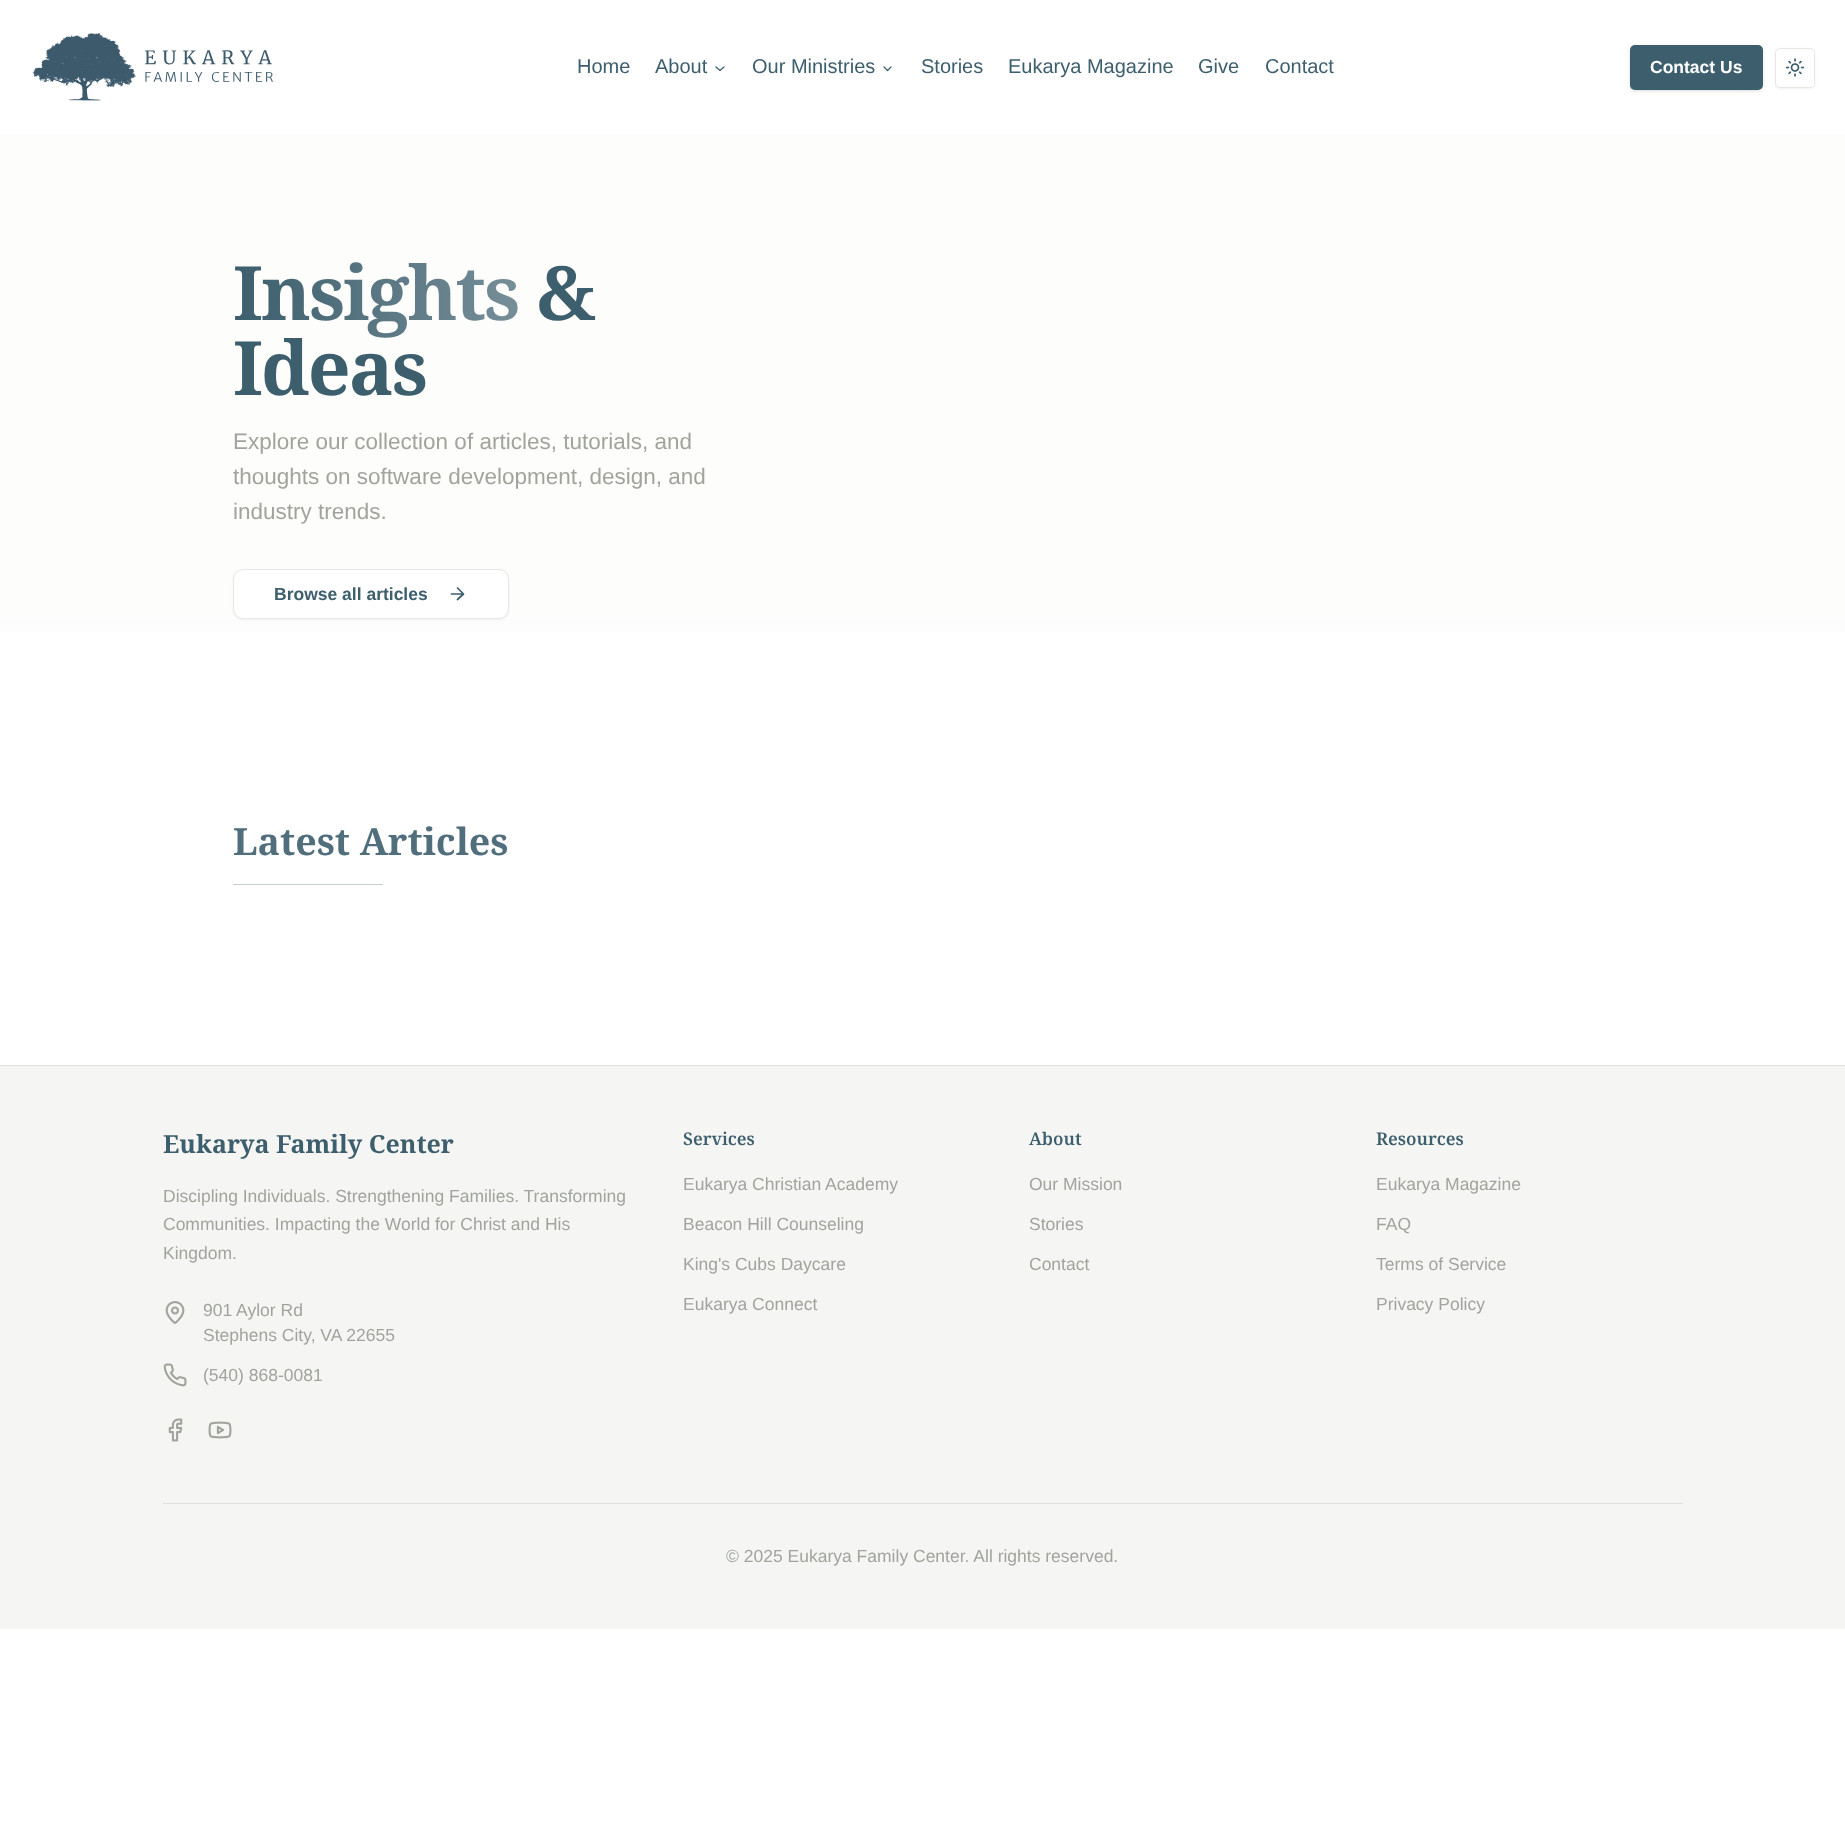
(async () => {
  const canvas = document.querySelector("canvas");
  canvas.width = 1845;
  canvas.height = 1841;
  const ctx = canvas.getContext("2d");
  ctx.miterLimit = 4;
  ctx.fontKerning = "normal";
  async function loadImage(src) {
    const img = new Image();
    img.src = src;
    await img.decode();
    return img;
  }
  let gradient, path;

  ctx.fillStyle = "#ffffff";
  ctx.fillRect(0, 0, 1845, 1841);
  ctx.drawImage(await loadImage("img/1.png"), 32, 33, 241, 68);
  path = new Path2D("M716 67L720 70.5L724 67");
  ctx.strokeStyle = "#3c5e6d";
  ctx.lineWidth = 1.2;
  ctx.lineCap = "round";
  ctx.lineJoin = "round";
  ctx.stroke(path);
  path = new Path2D("M884 67L887.5 70.5L891 67");
  ctx.stroke(path);
  ctx.fillStyle = "rgba(0, 0, 0, 0.1)";
  ctx.filter = "blur(1px)";
  ctx.beginPath();
  ctx.roundRect(1631, 48, 130, 42, 4);
  ctx.fill();
  ctx.filter = "none";
  ctx.filter = "blur(2px)";
  ctx.beginPath();
  ctx.roundRect(1630, 46, 133, 45, 5);
  ctx.fill();
  ctx.filter = "none";
  ctx.fillStyle = "#3c5e6d";
  ctx.beginPath();
  ctx.roundRect(1630, 45, 133, 45, 5);
  ctx.fill();
  ctx.fillStyle = "rgba(0, 0, 0, 0.05)";
  ctx.filter = "blur(1px)";
  ctx.beginPath();
  ctx.roundRect(1775, 49, 40, 40, 5);
  ctx.fill();
  ctx.filter = "none";
  ctx.fillStyle = "#ffffff";
  ctx.beginPath();
  ctx.roundRect(1775.5, 48.5, 39, 39, 4.5);
  ctx.fill();
  ctx.strokeStyle = "#e6e8e3";
  ctx.lineWidth = 1;
  ctx.lineJoin = "miter";
  ctx.stroke();
  ctx.drawImage(await loadImage("img/2.png"), 1785, 58, 20, 19);
  ctx.fillStyle = "#fdfdfc";
  ctx.fillRect(0, 134, 1845, 485);
  gradient = ctx.createLinearGradient(923, 699, 923, 619);
  gradient.addColorStop(0, "#ffffff");
  gradient.addColorStop(1, "#fcfcfc");
  ctx.fillStyle = gradient;
  ctx.fillRect(0, 619, 1845, 13);
  ctx.fillStyle = "rgba(0, 0, 0, 0.05)";
  ctx.filter = "blur(1px)";
  ctx.beginPath();
  ctx.roundRect(233, 570, 276, 50, 10);
  ctx.fill();
  ctx.filter = "none";
  ctx.fillStyle = "#ffffff";
  ctx.beginPath();
  ctx.roundRect(233.5, 569.5, 275, 49, 9.5);
  ctx.fill();
  ctx.stroke();
  path = new Path2D("M451.5 594H463.5M457.5 588L463.5 594L457.5 599.5");
  ctx.strokeStyle = "#3c5e6d";
  ctx.lineWidth = 1.7;
  ctx.lineJoin = "round";
  ctx.stroke(path);
  for (const [x, y, w, h, color] of [
    [233, 884, 150, 1, "#c5cfd3"],
    [0, 1066, 1845, 563, "#f5f6f4"],
    [0, 1065, 1845, 1, "#dfe0de"],
  ]) {
    ctx.fillStyle = color;
    ctx.fillRect(x, y, w, h);
  }
  ctx.drawImage(await loadImage("img/3.png"), 165, 1301, 20, 23);
  ctx.drawImage(await loadImage("img/4.png"), 163, 1363, 24, 24);
  ctx.drawImage(await loadImage("img/5.png"), 168, 1418, 15, 24);
  ctx.drawImage(await loadImage("img/6.png"), 208, 1421, 24, 18);
  ctx.fillRect(163, 1503, 1520, 1);
  ctx.font = "20px Liberation Sans";
  ctx.fillStyle = "#3c5e6d";
  for (const [text, x, y] of [
    ["Home", 577, 73],
    ["About", 655, 73],
    ["Our Ministries", 752, 73],
    ["Stories", 921, 73],
    ["Eukarya Magazine", 1008, 73],
    ["Give", 1198, 73],
    ["Contact", 1265, 73],
  ]) {
    ctx.fillText(text, x, y);
  }
  ctx.font = "bold 17.5px Liberation Sans";
  ctx.fillStyle = "#ffffff";
  ctx.fillText("Contact Us", 1650, 73);
  ctx.letterSpacing = "-2px";
  ctx.font = "bold 75px Noto Serif";
  gradient = ctx.createLinearGradient(233, 292, 519, 292);
  gradient.addColorStop(0, "#3c5e6d");
  gradient.addColorStop(1, "#768e98");
  ctx.fillStyle = gradient;
  ctx.fillText("Insights", 233, 320);
  ctx.fillStyle = "#3c5e6d";
  ctx.fillText("&", 536, 320);
  ctx.fillText("Ideas", 233, 395);
  ctx.letterSpacing = "0px";
  ctx.font = "22.5px Liberation Sans";
  ctx.fillStyle = "#a1a49d";
  for (const [text, x, y] of [
    ["Explore our collection of articles, tutorials, and", 233, 449],
    ["thoughts on software development, design, and", 233, 484],
    ["industry trends.", 233, 519],
  ]) {
    ctx.fillText(text, x, y);
  }
  ctx.font = "bold 17.5px Liberation Sans";
  ctx.fillStyle = "#3c5e6d";
  ctx.fillText("Browse all articles", 274, 600);
  ctx.font = "bold 37.5px Noto Serif";
  ctx.fillStyle = "#506e7c";
  ctx.fillText("Latest Articles", 233, 855);
  ctx.font = "bold 25px Noto Serif";
  ctx.fillStyle = "#3c5e6d";
  ctx.fillText("Eukarya Family Center", 163, 1153);
  ctx.font = "17.5px Liberation Sans";
  ctx.fillStyle = "#a1a49d";
  for (const [text, x, y] of [
    ["Discipling Individuals. Strengthening Families. Transforming", 163, 1202],
    ["Communities. Impacting the World for Christ and His", 163, 1230],
    ["Kingdom.", 163, 1259],
    ["901 Aylor Rd", 203, 1316],
    ["Stephens City, VA 22655", 203, 1341],
    ["(540) 868-0081", 203, 1381],
  ]) {
    ctx.fillText(text, x, y);
  }
  ctx.font = "600 17.5px Noto Serif";
  ctx.fillStyle = "#3c5e6d";
  ctx.fillText("Services", 683, 1145);
  ctx.font = "17.5px Liberation Sans";
  ctx.fillStyle = "#a1a49d";
  for (const [text, x, y] of [
    ["Eukarya Christian Academy", 683, 1190],
    ["Beacon Hill Counseling", 683, 1230],
    ["King's Cubs Daycare", 683, 1270],
    ["Eukarya Connect", 683, 1310],
  ]) {
    ctx.fillText(text, x, y);
  }
  ctx.font = "600 17.5px Noto Serif";
  ctx.fillStyle = "#3c5e6d";
  ctx.fillText("About", 1029, 1145);
  ctx.font = "17.5px Liberation Sans";
  ctx.fillStyle = "#a1a49d";
  for (const [text, x, y] of [
    ["Our Mission", 1029, 1190],
    ["Stories", 1029, 1230],
    ["Contact", 1029, 1270],
  ]) {
    ctx.fillText(text, x, y);
  }
  ctx.font = "600 17.5px Noto Serif";
  ctx.fillStyle = "#3c5e6d";
  ctx.fillText("Resources", 1376, 1145);
  ctx.font = "17.5px Liberation Sans";
  ctx.fillStyle = "#a1a49d";
  for (const [text, x, y] of [
    ["Eukarya Magazine", 1376, 1190],
    ["FAQ", 1376, 1230],
    ["Terms of Service", 1376, 1270],
    ["Privacy Policy", 1376, 1310],
    ["© 2025 Eukarya Family Center. All rights reserved.", 726, 1562],
  ]) {
    ctx.fillText(text, x, y);
  }
})();
